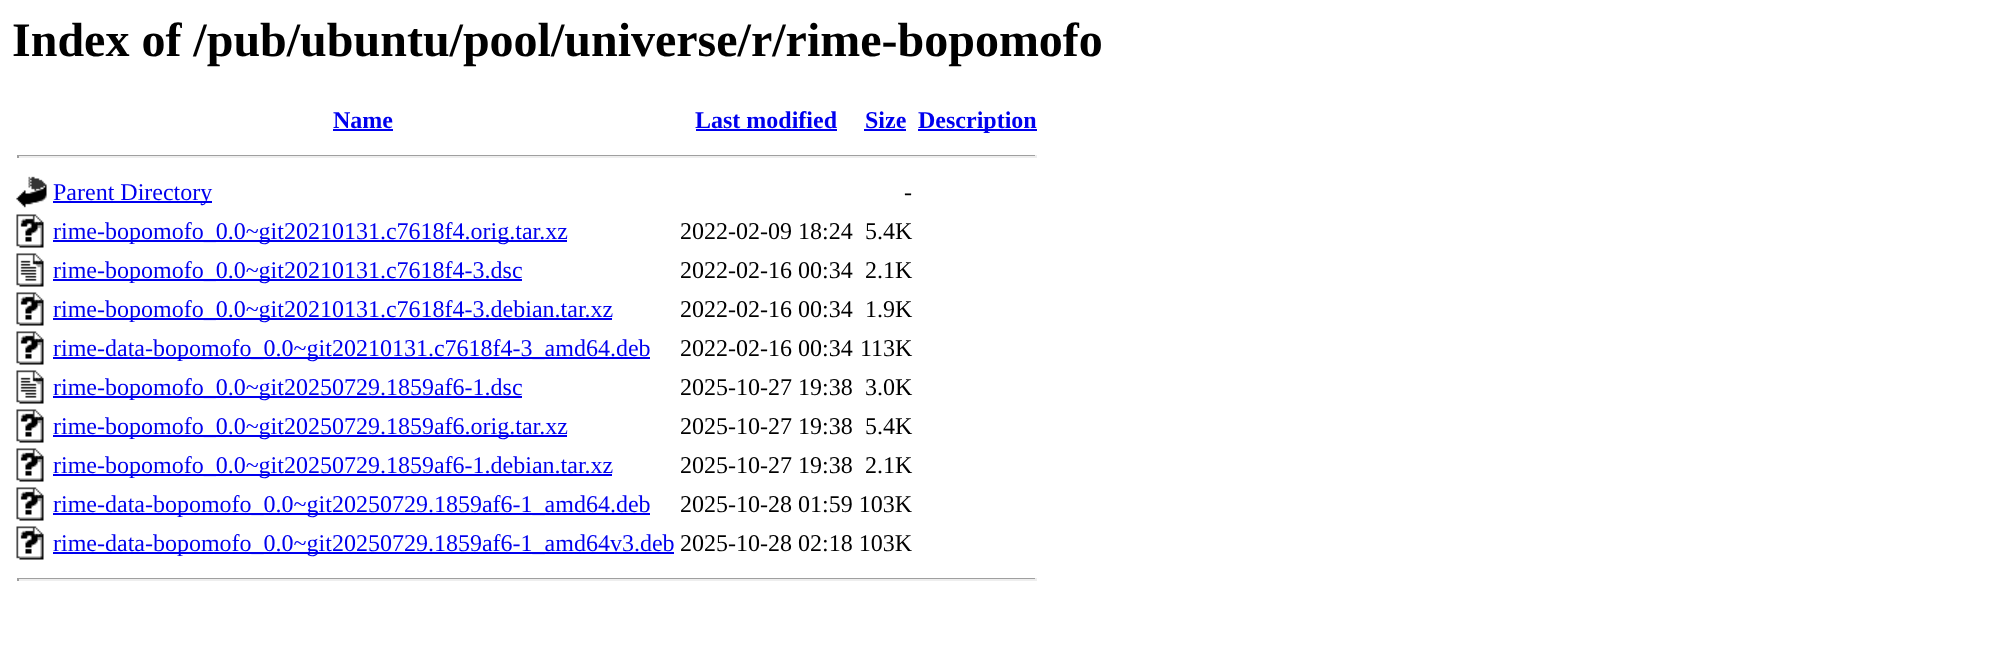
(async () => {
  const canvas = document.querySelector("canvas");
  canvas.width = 2012;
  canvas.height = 672;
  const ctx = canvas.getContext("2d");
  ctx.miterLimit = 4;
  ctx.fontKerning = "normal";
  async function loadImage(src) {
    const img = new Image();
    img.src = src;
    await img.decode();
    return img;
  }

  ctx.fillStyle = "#ffffff";
  ctx.fillRect(0, 0, 2012, 672);
  for (const [x, y, w, h, color] of [
    [333, 129, 60, 2, "#0000ee"],
    [696, 129, 141, 2, "#0000ee"],
    [864, 129, 42, 2, "#0000ee"],
    [918, 129, 119, 2, "#0000ee"],
    [17, 155, 1020, 1, "#9f9f9f"],
    [1035, 155, 2, 3, "#eeeeee"],
    [17, 156, 1020, 2, "#eeeeee"],
    [17, 155, 2, 3, "#9f9f9f"],
  ]) {
    ctx.fillStyle = color;
    ctx.fillRect(x, y, w, h);
  }
  ctx.drawImage(await loadImage("img/1.png"), 16, 176, 31, 32);
  ctx.fillStyle = "#0000ee";
  ctx.fillRect(53, 201, 159, 2);
  ctx.drawImage(await loadImage("img/2.png"), 16, 214, 28, 34);
  ctx.fillRect(53, 240, 514, 2);
  ctx.drawImage(await loadImage("img/3.png"), 16, 253, 28, 34);
  ctx.fillRect(53, 279, 469, 2);
  ctx.drawImage(await loadImage("img/2.png"), 16, 292, 28, 34);
  ctx.fillRect(53, 318, 559, 2);
  ctx.drawImage(await loadImage("img/2.png"), 16, 331, 28, 34);
  ctx.fillRect(53, 357, 597, 2);
  ctx.drawImage(await loadImage("img/3.png"), 16, 370, 28, 34);
  ctx.fillRect(53, 396, 469, 2);
  ctx.drawImage(await loadImage("img/2.png"), 16, 409, 28, 34);
  ctx.fillRect(53, 435, 514, 2);
  ctx.drawImage(await loadImage("img/2.png"), 16, 448, 28, 34);
  ctx.fillRect(53, 474, 559, 2);
  ctx.drawImage(await loadImage("img/2.png"), 16, 487, 28, 34);
  ctx.fillRect(53, 513, 597, 2);
  ctx.drawImage(await loadImage("img/2.png"), 16, 526, 28, 34);
  for (const [x, y, w, h, color] of [
    [53, 552, 621, 2, "#0000ee"],
    [17, 578, 1020, 1, "#9f9f9f"],
    [1035, 578, 2, 3, "#eeeeee"],
    [17, 579, 1020, 2, "#eeeeee"],
    [17, 578, 2, 3, "#9f9f9f"],
  ]) {
    ctx.fillStyle = color;
    ctx.fillRect(x, y, w, h);
  }
  ctx.font = "bold 48px Liberation Serif";
  ctx.fillStyle = "#000000";
  ctx.fillText("Index of /pub/ubuntu/pool/universe/r/rime-bopomofo", 12, 56);
  ctx.font = "bold 24px Liberation Serif";
  ctx.fillStyle = "#0000ee";
  for (const [text, x, y] of [
    ["Name", 333, 128],
    ["Last modified", 695, 128],
    ["Size", 865, 128],
    ["Description", 918, 128],
  ]) {
    ctx.fillText(text, x, y);
  }
  ctx.font = "24px Liberation Serif";
  ctx.fillText("Parent Directory", 53, 200);
  ctx.fillStyle = "#000000";
  ctx.fillText("-", 904, 200);
  ctx.fillStyle = "#0000ee";
  ctx.fillText("rime-bopomofo_0.0~git20210131.c7618f4.orig.tar.xz", 53, 239);
  ctx.fillStyle = "#000000";
  ctx.fillText("2022-02-09 18:24", 680, 239);
  ctx.fillText("5.4K", 865, 239);
  ctx.fillStyle = "#0000ee";
  ctx.fillText("rime-bopomofo_0.0~git20210131.c7618f4-3.dsc", 53, 278);
  ctx.fillStyle = "#000000";
  ctx.fillText("2022-02-16 00:34", 680, 278);
  ctx.fillText("2.1K", 865, 278);
  ctx.fillStyle = "#0000ee";
  ctx.fillText("rime-bopomofo_0.0~git20210131.c7618f4-3.debian.tar.xz", 53, 317);
  ctx.fillStyle = "#000000";
  ctx.fillText("2022-02-16 00:34", 680, 317);
  ctx.fillText("1.9K", 865, 317);
  ctx.fillStyle = "#0000ee";
  ctx.fillText("rime-data-bopomofo_0.0~git20210131.c7618f4-3_amd64.deb", 53, 356);
  ctx.fillStyle = "#000000";
  ctx.fillText("2022-02-16 00:34", 680, 356);
  ctx.fillText("113K", 860, 356);
  ctx.fillStyle = "#0000ee";
  ctx.fillText("rime-bopomofo_0.0~git20250729.1859af6-1.dsc", 53, 395);
  ctx.fillStyle = "#000000";
  ctx.fillText("2025-10-27 19:38", 680, 395);
  ctx.fillText("3.0K", 865, 395);
  ctx.fillStyle = "#0000ee";
  ctx.fillText("rime-bopomofo_0.0~git20250729.1859af6.orig.tar.xz", 53, 434);
  ctx.fillStyle = "#000000";
  ctx.fillText("2025-10-27 19:38", 680, 434);
  ctx.fillText("5.4K", 865, 434);
  ctx.fillStyle = "#0000ee";
  ctx.fillText("rime-bopomofo_0.0~git20250729.1859af6-1.debian.tar.xz", 53, 473);
  ctx.fillStyle = "#000000";
  ctx.fillText("2025-10-27 19:38", 680, 473);
  ctx.fillText("2.1K", 865, 473);
  ctx.fillStyle = "#0000ee";
  ctx.fillText("rime-data-bopomofo_0.0~git20250729.1859af6-1_amd64.deb", 53, 512);
  ctx.fillStyle = "#000000";
  ctx.fillText("2025-10-28 01:59 103K", 680, 512);
  ctx.fillStyle = "#0000ee";
  ctx.fillText("rime-data-bopomofo_0.0~git20250729.1859af6-1_amd64v3.deb", 53, 551);
  ctx.fillStyle = "#000000";
  ctx.fillText("2025-10-28 02:18 103K", 680, 551);
})();
